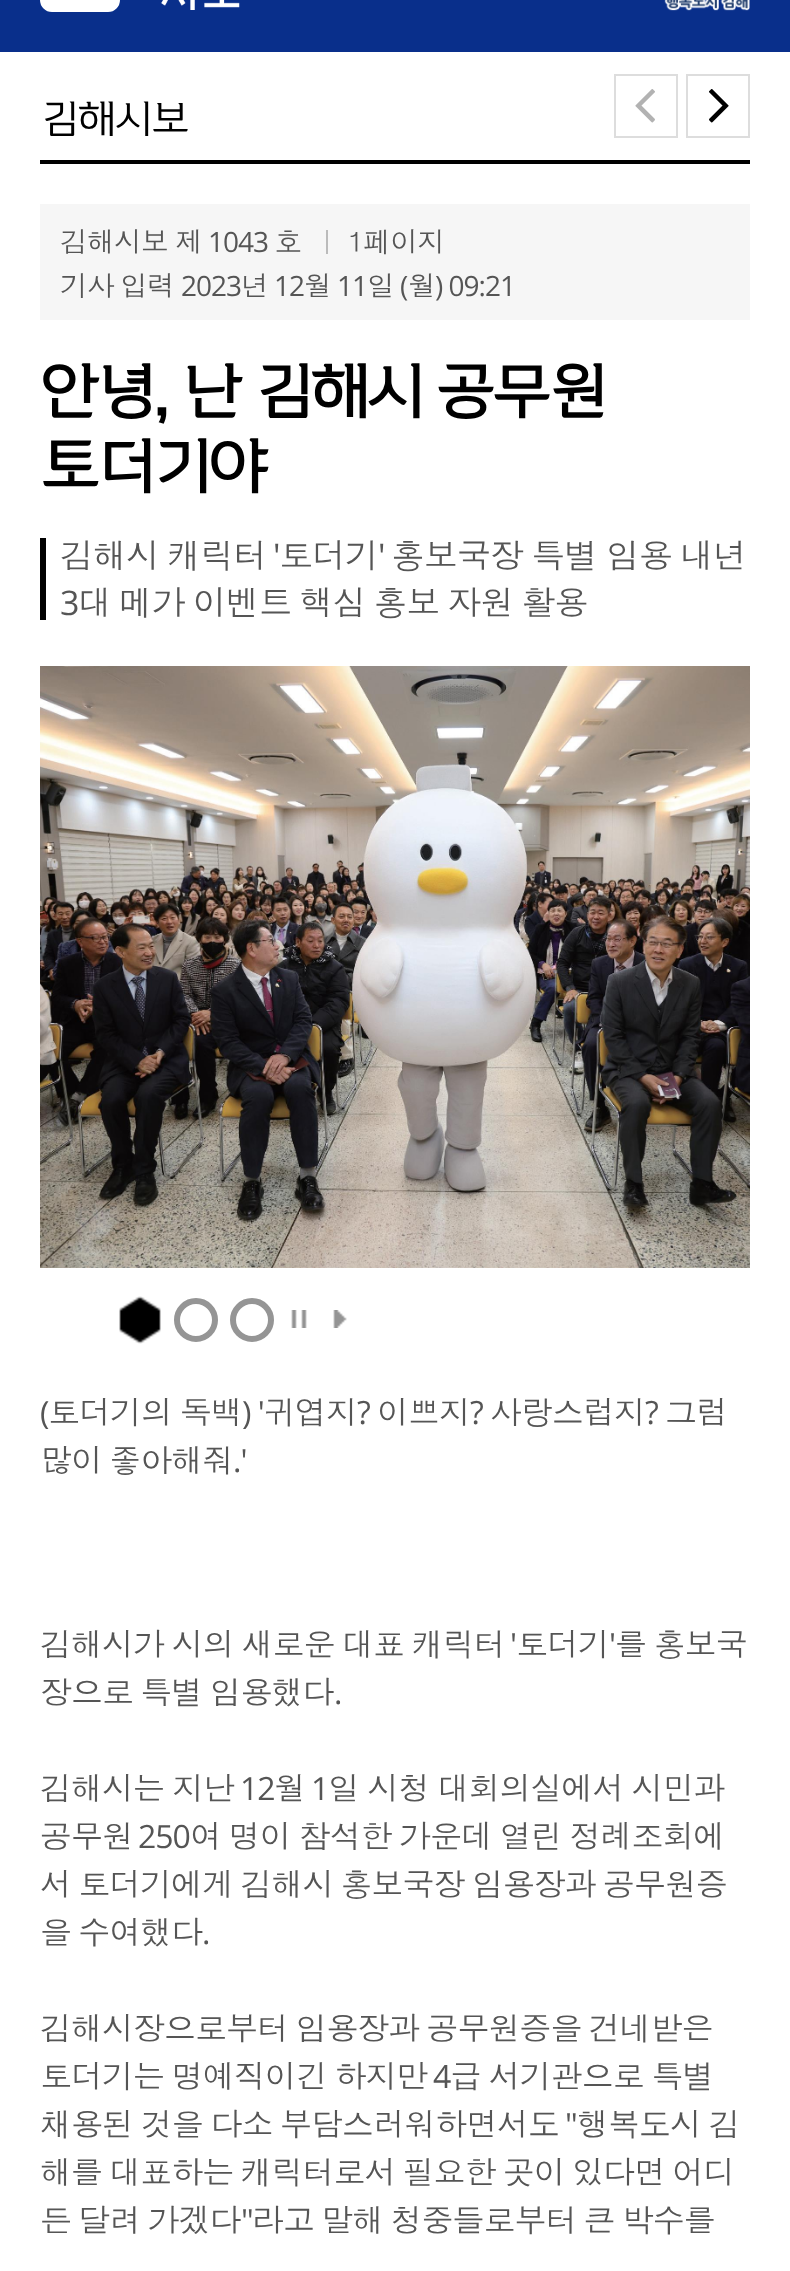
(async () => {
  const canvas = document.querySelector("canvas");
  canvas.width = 790;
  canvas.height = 2271;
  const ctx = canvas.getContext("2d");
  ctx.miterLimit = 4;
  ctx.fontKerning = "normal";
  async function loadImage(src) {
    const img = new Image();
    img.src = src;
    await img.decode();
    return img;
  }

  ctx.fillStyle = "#092f8b";
  ctx.fillRect(0, 0, 790, 2271);
  ctx.fillStyle = "#ffffff";
  ctx.beginPath();
  ctx.roundRect(41, -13, 78, 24, 11);
  ctx.fill();
  ctx.strokeStyle = "#ffffff";
  ctx.lineWidth = 2;
  ctx.stroke();
  ctx.drawImage(await loadImage("img/1.png"), 161, 0, 79, 10);
  ctx.drawImage(await loadImage("img/2.png"), 664, 0, 86, 11);
  ctx.fillRect(0, 52, 790, 2219);
  ctx.fillStyle = "#000000";
  ctx.fillRect(40, 160, 710, 4);
  ctx.strokeStyle = "#dddddd";
  ctx.strokeRect(615, 75, 62, 62);
  ctx.drawImage(await loadImage("img/3.png"), 635, 89, 20, 34);
  ctx.strokeRect(687, 75, 62, 62);
  ctx.drawImage(await loadImage("img/4.png"), 709, 89, 20, 34);
  for (const [x, y, w, h, color] of [
    [40, 204, 710, 116, "#f6f6f6"],
    [326, 230, 2, 24, "#bbbbbb"],
    [40, 538, 6, 82, "#000000"],
  ]) {
    ctx.fillStyle = color;
    ctx.fillRect(x, y, w, h);
  }
  ctx.drawImage(await loadImage("img/5.png"), 40, 666, 710, 602);
  ctx.drawImage(await loadImage("img/6.png"), 119, 1296, 42, 48);
  ctx.beginPath();
  ctx.arc(196, 1320, 19, 0, Math.PI * 2);
  ctx.strokeStyle = "#959595";
  ctx.lineWidth = 6;
  ctx.stroke();
  ctx.beginPath();
  ctx.arc(252, 1320, 19, 0, Math.PI * 2);
  ctx.stroke();
  ctx.drawImage(await loadImage("img/7.png"), 291, 1310, 16, 18);
  ctx.drawImage(await loadImage("img/8.png"), 333, 1310, 14, 18);
  ctx.letterSpacing = "-2px";
  ctx.font = "39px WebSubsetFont";
  ctx.fillText("김해시보", 40, 132);
  ctx.letterSpacing = "-1px";
  ctx.wordSpacing = "-1px";
  ctx.font = "28px Dotum";
  ctx.fillStyle = "#555555";
  ctx.fillText("김해시보 제", 60, 252);
  ctx.wordSpacing = "0px";
  ctx.font = "28px Open Sans";
  ctx.fillText("1043", 208, 252);
  ctx.font = "28px Dotum";
  for (const [text, x, y] of [
    ["호", 274, 252],
    ["1페이지", 348, 252],
    ["기사", 60, 296],
    ["입력", 120, 296],
  ]) {
    ctx.fillText(text, x, y);
  }
  ctx.font = "28px Open Sans";
  ctx.fillText("2023", 181, 296);
  ctx.font = "28px Dotum";
  ctx.fillText("년", 241, 296);
  ctx.font = "28px Open Sans";
  ctx.fillText("12", 274, 296);
  ctx.font = "28px Dotum";
  ctx.fillText("월", 304, 296);
  ctx.font = "28px Open Sans";
  ctx.fillText("11", 337, 296);
  ctx.font = "28px Dotum";
  ctx.fillText("일", 367, 296);
  ctx.font = "28px Open Sans";
  ctx.fillText("(", 400, 296);
  ctx.font = "28px Dotum";
  ctx.fillText("월", 408, 296);
  ctx.font = "28px Open Sans";
  ctx.fillText(") 09:21", 435, 296);
  ctx.letterSpacing = "-4px";
  ctx.font = "bold 60px WebSubsetFont";
  ctx.fillStyle = "#000000";
  ctx.fillText("안녕, 난 김해시 공무원", 40, 412);
  ctx.fillText("토더기야", 40, 487);
  ctx.letterSpacing = "-1px";
  ctx.wordSpacing = "-2px";
  ctx.font = "34px Dotum";
  ctx.fillStyle = "#555555";
  ctx.fillText("김해시 캐릭터", 60, 568);
  ctx.wordSpacing = "0px";
  ctx.font = "34px Open Sans";
  ctx.fillText("'", 273, 568);
  ctx.font = "34px Dotum";
  ctx.fillText("토더기", 279, 568);
  ctx.font = "34px Open Sans";
  ctx.fillText("'", 378, 568);
  ctx.wordSpacing = "-2px";
  ctx.font = "34px Dotum";
  ctx.fillText("홍보국장 특별 임용 내년", 391, 568);
  ctx.wordSpacing = "0px";
  ctx.font = "34px Open Sans";
  ctx.fillText("3", 60, 615);
  ctx.wordSpacing = "-2.5px";
  ctx.font = "34px Dotum";
  ctx.fillText("대 메가 이벤트 핵심 홍보 자원 활용", 78, 615);
  ctx.wordSpacing = "0px";
  ctx.font = "32px Open Sans";
  ctx.fillText("(", 40, 1424);
  ctx.font = "32px Dotum";
  ctx.fillText("토더기의", 48, 1424);
  ctx.fillText("독백", 180, 1424);
  ctx.font = "32px Open Sans";
  ctx.fillText(") '", 242, 1424);
  ctx.font = "32px Dotum";
  ctx.fillText("귀엽지", 264, 1424);
  ctx.font = "32px Open Sans";
  ctx.fillText("?", 357, 1424);
  ctx.font = "32px Dotum";
  ctx.fillText("이쁘지", 377, 1424);
  ctx.font = "32px Open Sans";
  ctx.fillText("?", 470, 1424);
  ctx.font = "32px Dotum";
  ctx.fillText("사랑스럽지", 490, 1424);
  ctx.font = "32px Open Sans";
  ctx.fillText("?", 645, 1424);
  ctx.font = "32px Dotum";
  ctx.fillText("그럼", 665, 1424);
  ctx.wordSpacing = "-2.5px";
  ctx.fillText("많이 좋아해줘", 40, 1472);
  ctx.wordSpacing = "0px";
  ctx.font = "32px Open Sans";
  ctx.fillText(".'", 233, 1472);
  ctx.wordSpacing = "-2px";
  ctx.font = "32px Dotum";
  ctx.fillText("김해시가 시의 새로운 대표 캐릭터", 40, 1656);
  ctx.wordSpacing = "0px";
  ctx.font = "32px Open Sans";
  ctx.fillText("'", 510, 1656);
  ctx.font = "32px Dotum";
  ctx.fillText("토더기", 516, 1656);
  ctx.font = "32px Open Sans";
  ctx.fillText("'", 609, 1656);
  ctx.wordSpacing = "-2px";
  ctx.font = "32px Dotum";
  ctx.fillText("를 홍보국", 615, 1656);
  ctx.wordSpacing = "-2.5px";
  ctx.fillText("장으로 특별 임용했다", 40, 1704);
  ctx.wordSpacing = "0px";
  ctx.font = "32px Open Sans";
  ctx.fillText(".", 334, 1704);
  ctx.wordSpacing = "-1.5px";
  ctx.font = "32px Dotum";
  ctx.fillText("김해시는 지난", 40, 1800);
  ctx.wordSpacing = "0px";
  ctx.font = "32px Open Sans";
  ctx.fillText("12", 240, 1800);
  ctx.font = "32px Dotum";
  ctx.fillText("월", 274, 1800);
  ctx.font = "32px Open Sans";
  ctx.fillText("1", 311, 1800);
  ctx.wordSpacing = "-1.5px";
  ctx.font = "32px Dotum";
  ctx.fillText("일 시청 대회의실에서 시민과", 328, 1800);
  ctx.wordSpacing = "0px";
  ctx.fillText("공무원", 40, 1848);
  ctx.font = "32px Open Sans";
  ctx.fillText("250", 138, 1848);
  ctx.wordSpacing = "-2px";
  ctx.font = "32px Dotum";
  ctx.fillText("여 명이 참석한 가운데 열린 정례조회에", 190, 1848);
  ctx.wordSpacing = "-2.5px";
  ctx.fillText("서 토더기에게 김해시 홍보국장 임용장과 공무원증", 40, 1896);
  ctx.fillText("을 수여했다", 40, 1944);
  ctx.wordSpacing = "0px";
  ctx.font = "32px Open Sans";
  ctx.fillText(".", 202, 1944);
  ctx.wordSpacing = "-2.5px";
  ctx.font = "32px Dotum";
  ctx.fillText("김해시장으로부터 임용장과 공무원증을 건네받은", 40, 2040);
  ctx.wordSpacing = "-2px";
  ctx.fillText("토더기는 명예직이긴 하지만", 40, 2088);
  ctx.wordSpacing = "0px";
  ctx.font = "32px Open Sans";
  ctx.fillText("4", 433, 2088);
  ctx.wordSpacing = "-2px";
  ctx.font = "32px Dotum";
  ctx.fillText("급 서기관으로 특별", 450, 2088);
  ctx.fillText("채용된 것을 다소 부담스러워하면서도", 40, 2136);
  ctx.wordSpacing = "0px";
  ctx.font = "32px Open Sans";
  ctx.fillText("\"", 565, 2136);
  ctx.wordSpacing = "-2px";
  ctx.font = "32px Dotum";
  ctx.fillText("행복도시 김", 577, 2136);
  ctx.wordSpacing = "-2.5px";
  ctx.fillText("해를 대표하는 캐릭터로서 필요한 곳이 있다면 어디", 40, 2184);
  ctx.fillText("든 달려 가겠다", 40, 2232);
  ctx.wordSpacing = "0px";
  ctx.font = "32px Open Sans";
  ctx.fillText("\"", 241, 2232);
  ctx.wordSpacing = "-2.5px";
  ctx.font = "32px Dotum";
  ctx.fillText("라고 말해 청중들로부터 큰 박수를", 252, 2232);
})();
